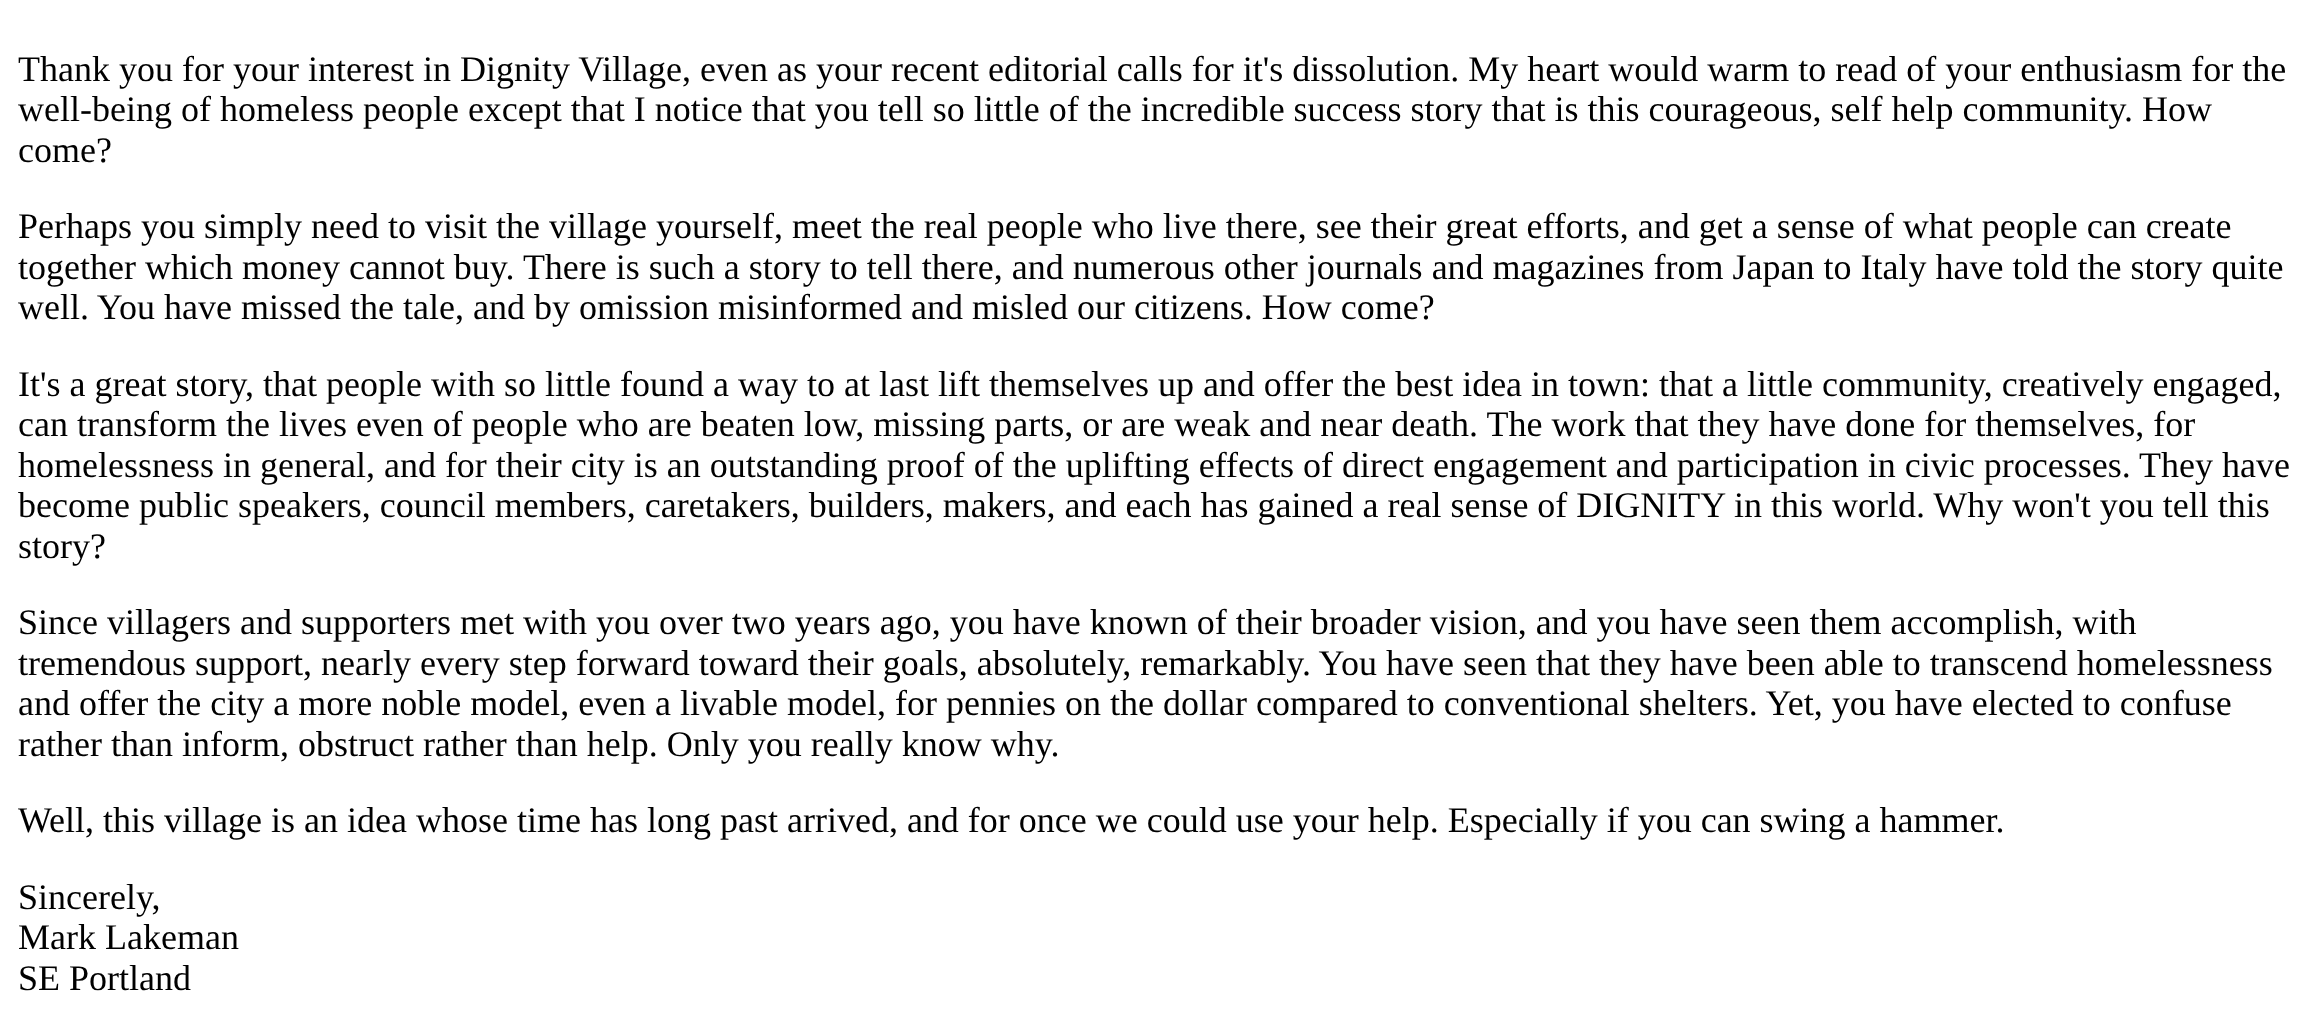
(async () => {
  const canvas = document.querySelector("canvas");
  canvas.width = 2319;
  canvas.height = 1027;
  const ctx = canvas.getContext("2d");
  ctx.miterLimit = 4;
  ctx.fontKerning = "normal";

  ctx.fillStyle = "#ffffff";
  ctx.fillRect(0, 0, 2319, 1027);
  ctx.font = "36px Liberation Serif";
  ctx.fillStyle = "#000000";
  for (const [text, x, y] of [
    ["Thank you for your interest in Dignity Village, even as your recent editorial calls for it's dissolution. My heart would warm to read of your enthusiasm for the", 18, 81],
    ["well-being of homeless people except that I notice that you tell so little of the incredible success story that is this courageous, self help community. How", 18, 121],
    ["come?", 18, 162],
    ["Perhaps you simply need to visit the village yourself, meet the real people who live there, see their great efforts, and get a sense of what people can create", 18, 238],
    ["together which money cannot buy. There is such a story to tell there, and numerous other journals and magazines from Japan to Italy have told the story quite", 18, 279],
    ["well. You have missed the tale, and by omission misinformed and misled our citizens. How come?", 18, 319],
    ["It's a great story, that people with so little found a way to at last lift themselves up and offer the best idea in town: that a little community, creatively engaged,", 18, 396],
    ["can transform the lives even of people who are beaten low, missing parts, or are weak and near death. The work that they have done for themselves, for", 18, 436],
    ["homelessness in general, and for their city is an outstanding proof of the uplifting effects of direct engagement and participation in civic processes. They have", 18, 477],
    ["become public speakers, council members, caretakers, builders, makers, and each has gained a real sense of DIGNITY in this world. Why won't you tell this", 18, 517],
    ["story?", 18, 558],
    ["Since villagers and supporters met with you over two years ago, you have known of their broader vision, and you have seen them accomplish, with", 18, 634],
    ["tremendous support, nearly every step forward toward their goals, absolutely, remarkably. You have seen that they have been able to transcend homelessness", 18, 675],
    ["and offer the city a more noble model, even a livable model, for pennies on the dollar compared to conventional shelters. Yet, you have elected to confuse", 18, 715],
    ["rather than inform, obstruct rather than help. Only you really know why.", 18, 756],
    ["Well, this village is an idea whose time has long past arrived, and for once we could use your help. Especially if you can swing a hammer.", 18, 832],
    ["Sincerely,", 18, 909],
    ["Mark Lakeman", 18, 949],
    ["SE Portland", 18, 990],
  ]) {
    ctx.fillText(text, x, y);
  }
})();
